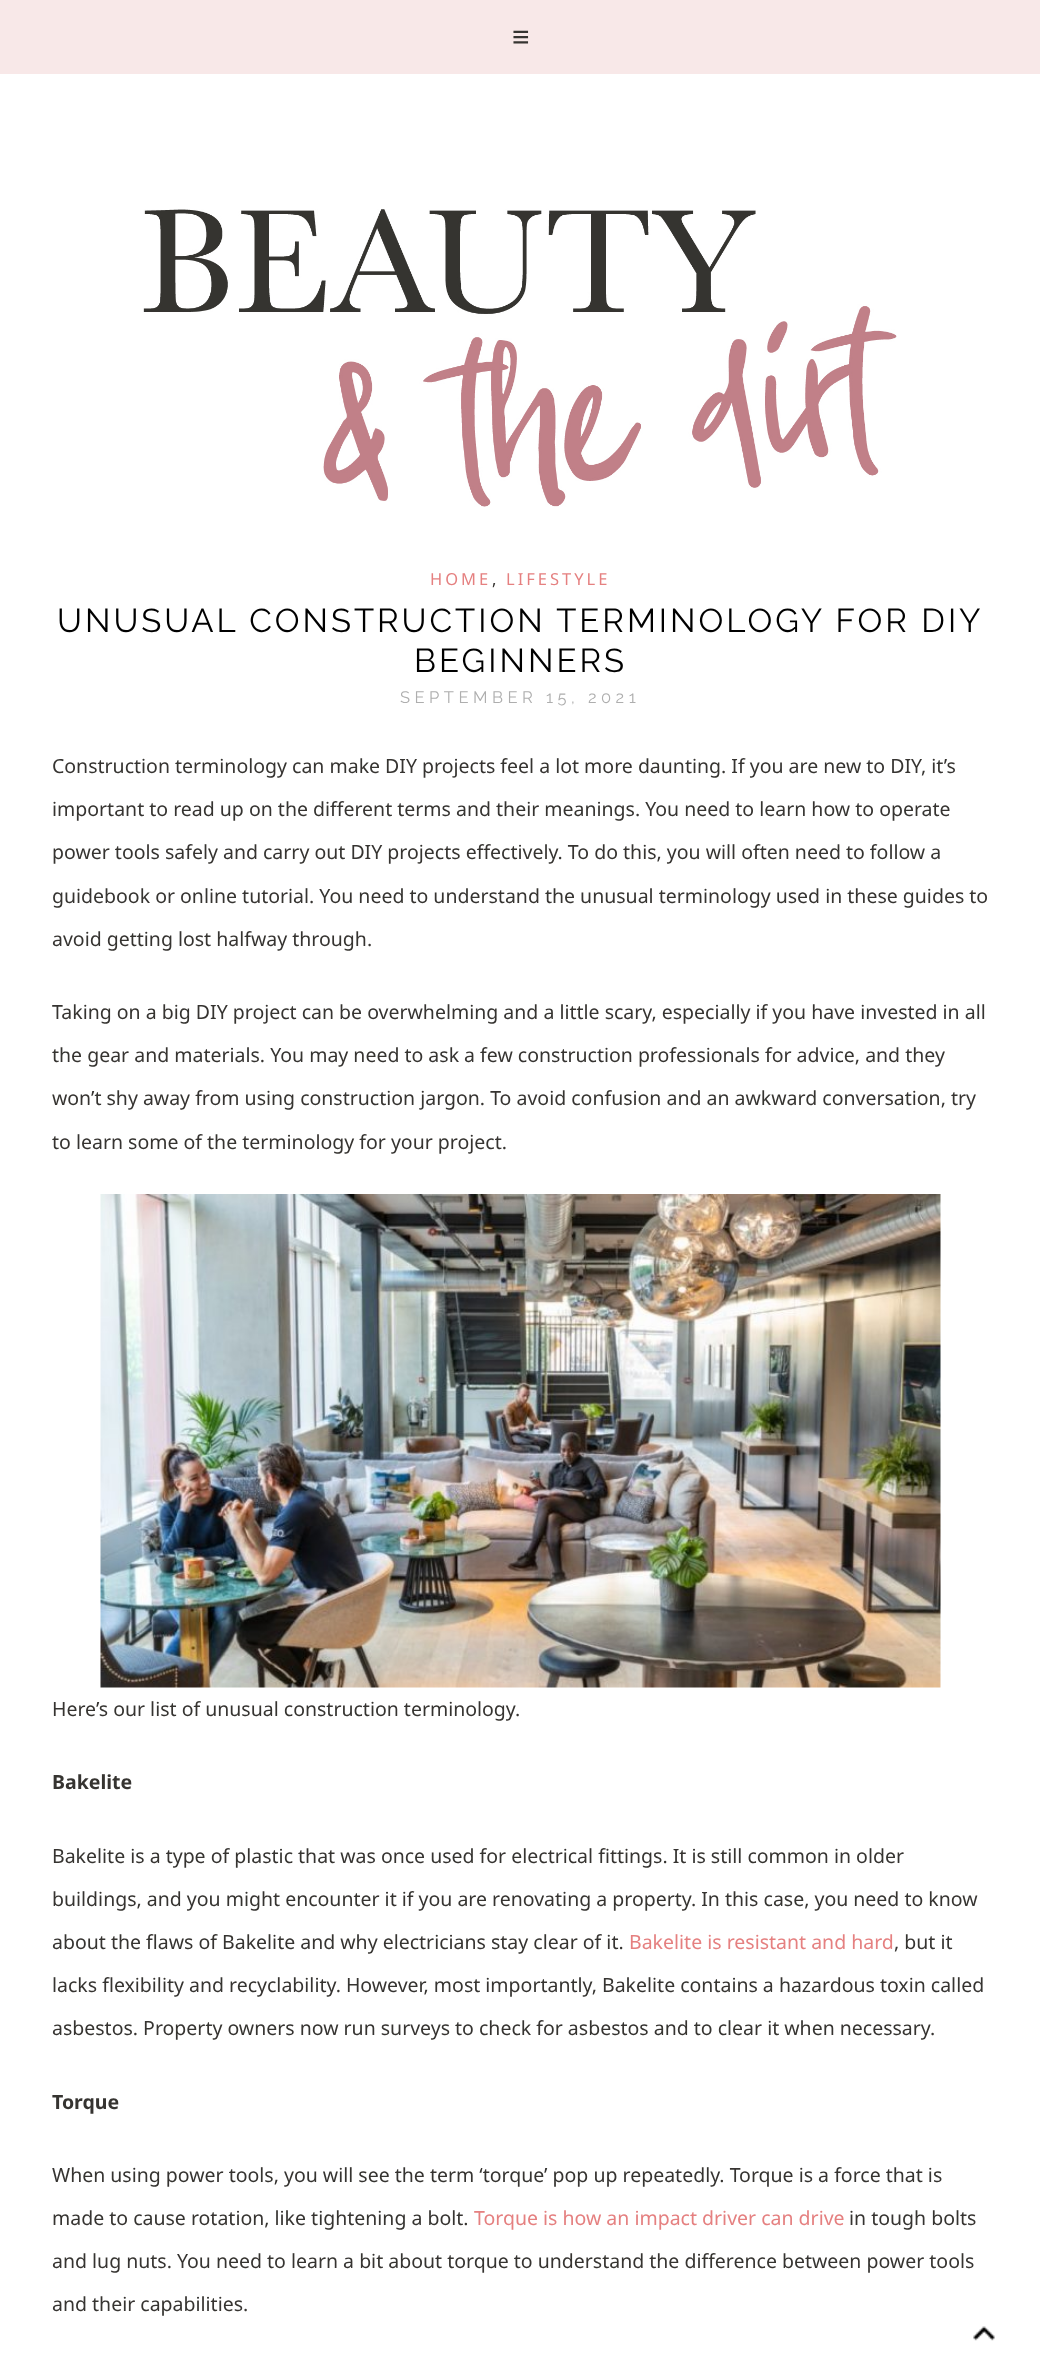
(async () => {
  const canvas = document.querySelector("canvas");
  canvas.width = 1040;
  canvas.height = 2375;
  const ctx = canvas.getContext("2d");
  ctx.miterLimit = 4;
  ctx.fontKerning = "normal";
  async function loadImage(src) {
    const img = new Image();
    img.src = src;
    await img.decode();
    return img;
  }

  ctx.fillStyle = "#ffffff";
  ctx.fillRect(0, 0, 1040, 2375);
  ctx.fillStyle = "#f8e8e8";
  ctx.fillRect(0, 0, 1040, 74);
  ctx.drawImage(await loadImage("img/1.png"), 143, 209, 754, 298);
  ctx.drawImage(await loadImage("img/2.png"), 100, 1194, 841, 494);
  ctx.drawImage(await loadImage("img/3.png"), 973, 2326, 22, 15);
  ctx.font = "30px Liberation Sans";
  ctx.fillStyle = "#363431";
  ctx.fillText("≡", 512, 47);
  ctx.letterSpacing = "3px";
  ctx.font = "16.5px Noto Sans";
  ctx.fillStyle = "#e58080";
  ctx.fillText("HOME", 430, 585);
  ctx.fillStyle = "#363431";
  ctx.fillText(",", 492, 585);
  ctx.fillStyle = "#e58080";
  ctx.fillText("LIFESTYLE", 506, 585);
  ctx.font = "33px Raleway";
  ctx.fillStyle = "#000000";
  ctx.fillText("UNUSUAL CONSTRUCTION TERMINOLOGY FOR DIY", 57, 632);
  ctx.fillText("BEGINNERS", 414, 672);
  ctx.letterSpacing = "4.5px";
  ctx.font = "16.5px Raleway";
  ctx.fillStyle = "#aeaeae";
  ctx.fillText("SEPTEMBER 15, 2021", 400, 703);
  ctx.letterSpacing = "0px";
  ctx.font = "19.5px Noto Sans";
  ctx.fillStyle = "#363431";
  for (const [text, x, y] of [
    ["Construction terminology can make DIY projects feel a lot more daunting. If you are new to DIY, it’s", 52, 773],
    ["important to read up on the different terms and their meanings. You need to learn how to operate", 52, 816],
    ["power tools safely and carry out DIY projects effectively. To do this, you will often need to follow a", 52, 859],
    ["guidebook or online tutorial. You need to understand the unusual terminology used in these guides to", 52, 903],
    ["avoid getting lost halfway through.", 52, 946],
    ["Taking on a big DIY project can be overwhelming and a little scary, especially if you have invested in all", 52, 1019],
    ["the gear and materials. You may need to ask a few construction professionals for advice, and they", 52, 1062],
    ["won’t shy away from using construction jargon. To avoid confusion and an awkward conversation, try", 52, 1105],
    ["to learn some of the terminology for your project.", 52, 1149],
    ["Here’s our list of unusual construction terminology.", 52, 1716],
  ]) {
    ctx.fillText(text, x, y);
  }
  ctx.font = "bold 19.5px Noto Sans";
  ctx.fillText("Bakelite", 52, 1789);
  ctx.font = "19.5px Noto Sans";
  for (const [text, x, y] of [
    ["Bakelite is a type of plastic that was once used for electrical fittings. It is still common in older", 52, 1863],
    ["buildings, and you might encounter it if you are renovating a property. In this case, you need to know", 52, 1906],
    ["about the flaws of Bakelite and why electricians stay clear of it.", 52, 1949],
  ]) {
    ctx.fillText(text, x, y);
  }
  ctx.fillStyle = "#e58080";
  ctx.fillText("Bakelite is resistant and hard", 629, 1949);
  ctx.fillStyle = "#363431";
  for (const [text, x, y] of [
    [", but it", 894, 1949],
    ["lacks flexibility and recyclability. However, most importantly, Bakelite contains a hazardous toxin called", 52, 1992],
    ["asbestos. Property owners now run surveys to check for asbestos and to clear it when necessary.", 52, 2035],
  ]) {
    ctx.fillText(text, x, y);
  }
  ctx.font = "bold 19.5px Noto Sans";
  ctx.fillText("Torque", 52, 2109);
  ctx.font = "19.5px Noto Sans";
  ctx.fillText("When using power tools, you will see the term ‘torque’ pop up repeatedly. Torque is a force that is", 52, 2182);
  ctx.fillText("made to cause rotation, like tightening a bolt.", 52, 2225);
  ctx.fillStyle = "#e58080";
  ctx.fillText("Torque is how an impact driver can drive", 474, 2225);
  ctx.fillStyle = "#363431";
  for (const [text, x, y] of [
    ["in tough bolts", 849, 2225],
    ["and lug nuts. You need to learn a bit about torque to understand the difference between power tools", 52, 2268],
    ["and their capabilities.", 52, 2311],
  ]) {
    ctx.fillText(text, x, y);
  }
})();
